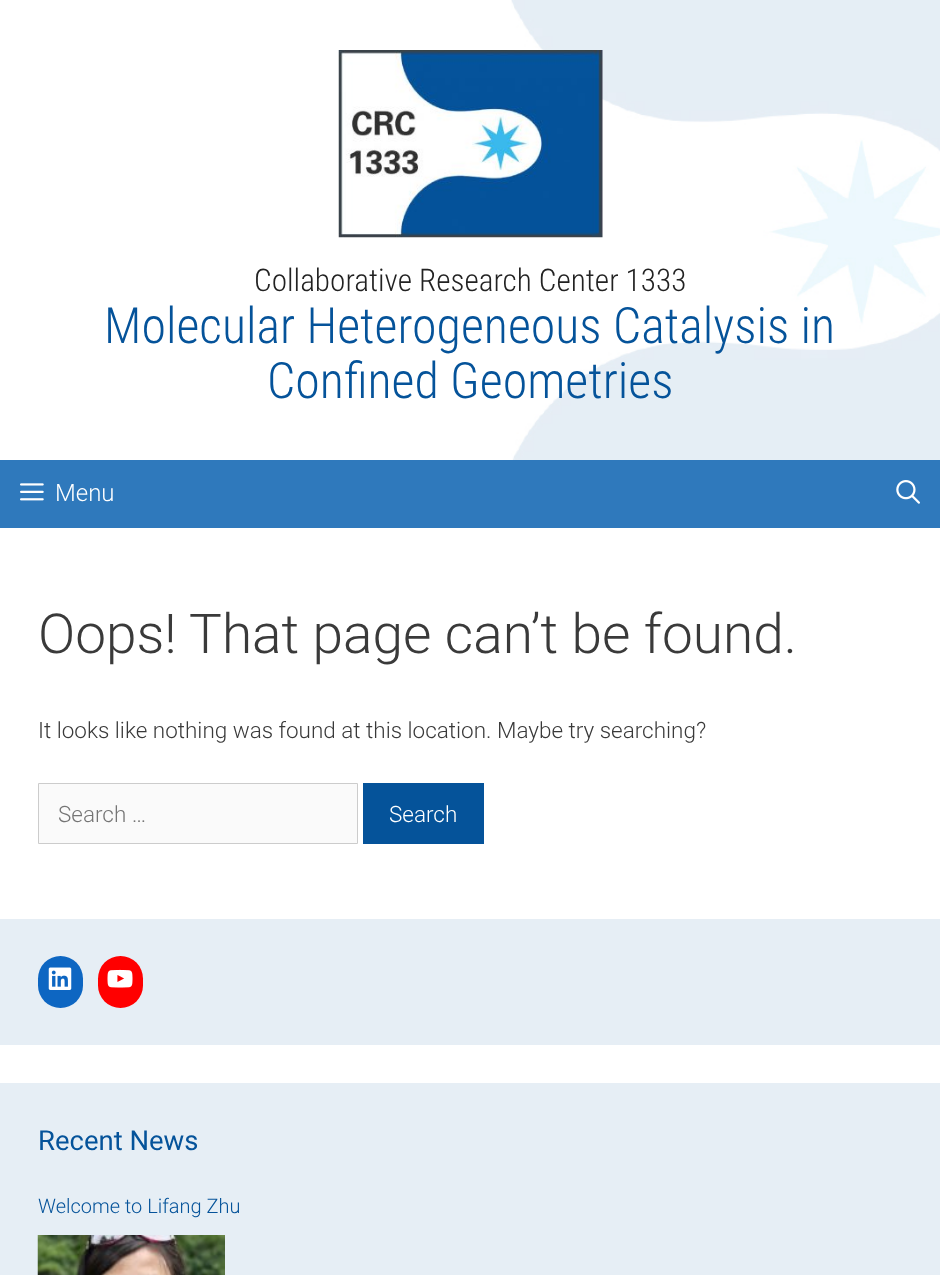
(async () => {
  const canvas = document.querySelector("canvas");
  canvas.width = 940;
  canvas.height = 1275;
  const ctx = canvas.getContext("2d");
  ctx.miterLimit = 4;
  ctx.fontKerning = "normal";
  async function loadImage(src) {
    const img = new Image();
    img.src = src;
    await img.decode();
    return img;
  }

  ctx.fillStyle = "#ffffff";
  ctx.fillRect(0, 0, 940, 1275);
  ctx.drawImage(await loadImage("img/1.png"), 511, 0, 429, 460);
  ctx.drawImage(await loadImage("img/2.png"), 338, 50, 265, 188);
  ctx.fillStyle = "#2f79bc";
  ctx.fillRect(0, 460, 940, 68);
  ctx.drawImage(await loadImage("img/3.png"), 20, 483, 24, 18);
  ctx.drawImage(await loadImage("img/4.png"), 896, 480, 24, 24);
  ctx.fillStyle = "#fafafa";
  ctx.beginPath();
  ctx.rect(38.5, 783.5, 319, 60);
  ctx.fill();
  ctx.strokeStyle = "#cccccc";
  ctx.stroke();
  ctx.fillStyle = "#05539a";
  ctx.fillRect(363, 783, 121, 61);
  ctx.fillStyle = "#e6eef5";
  ctx.fillRect(0, 919, 940, 126);
  ctx.fillStyle = "#0d66c2";
  ctx.beginPath();
  ctx.roundRect(38, 956, 45, 52, 22.5);
  ctx.fill();
  ctx.drawImage(await loadImage("img/5.png"), 48, 967, 24, 23);
  ctx.fillStyle = "#ff0000";
  ctx.beginPath();
  ctx.roundRect(98, 956, 45, 52, 22.5);
  ctx.fill();
  ctx.drawImage(await loadImage("img/6.png"), 107, 969, 26, 19);
  ctx.fillStyle = "#e6eef5";
  ctx.fillRect(0, 1083, 940, 192);
  ctx.drawImage(await loadImage("img/7.png"), 37, 1235, 188, 40);
  ctx.font = "300 31.25px Roboto Condensed";
  ctx.fillStyle = "#222222";
  ctx.fillText("Collaborative Research Center 1333", 254, 291);
  ctx.font = "300 50px Roboto Condensed";
  ctx.fillStyle = "#05539a";
  ctx.fillText("Molecular Heterogeneous Catalysis in", 104, 343);
  ctx.fillText("Confined Geometries", 267, 398);
  ctx.font = "300 24px Roboto";
  ctx.fillStyle = "#ffffff";
  ctx.fillText("Menu", 55, 501);
  ctx.font = "300 55px Roboto";
  ctx.fillStyle = "#3a3a3a";
  ctx.fillText("Oops! That page can’t be found.", 38, 653);
  ctx.font = "300 22.5px Roboto";
  ctx.fillText("It looks like nothing was found at this location. Maybe try searching?", 38, 738);
  ctx.fillStyle = "#757575";
  ctx.fillText("Search …", 58, 822);
  ctx.fillStyle = "#ffffff";
  ctx.fillText("Search", 389, 822);
  ctx.font = "27.5px Roboto";
  ctx.fillStyle = "#05539a";
  ctx.fillText("Recent News", 38, 1150);
  ctx.font = "300 20px Roboto";
  ctx.fillText("Welcome to Lifang Zhu", 38, 1213);
})();
